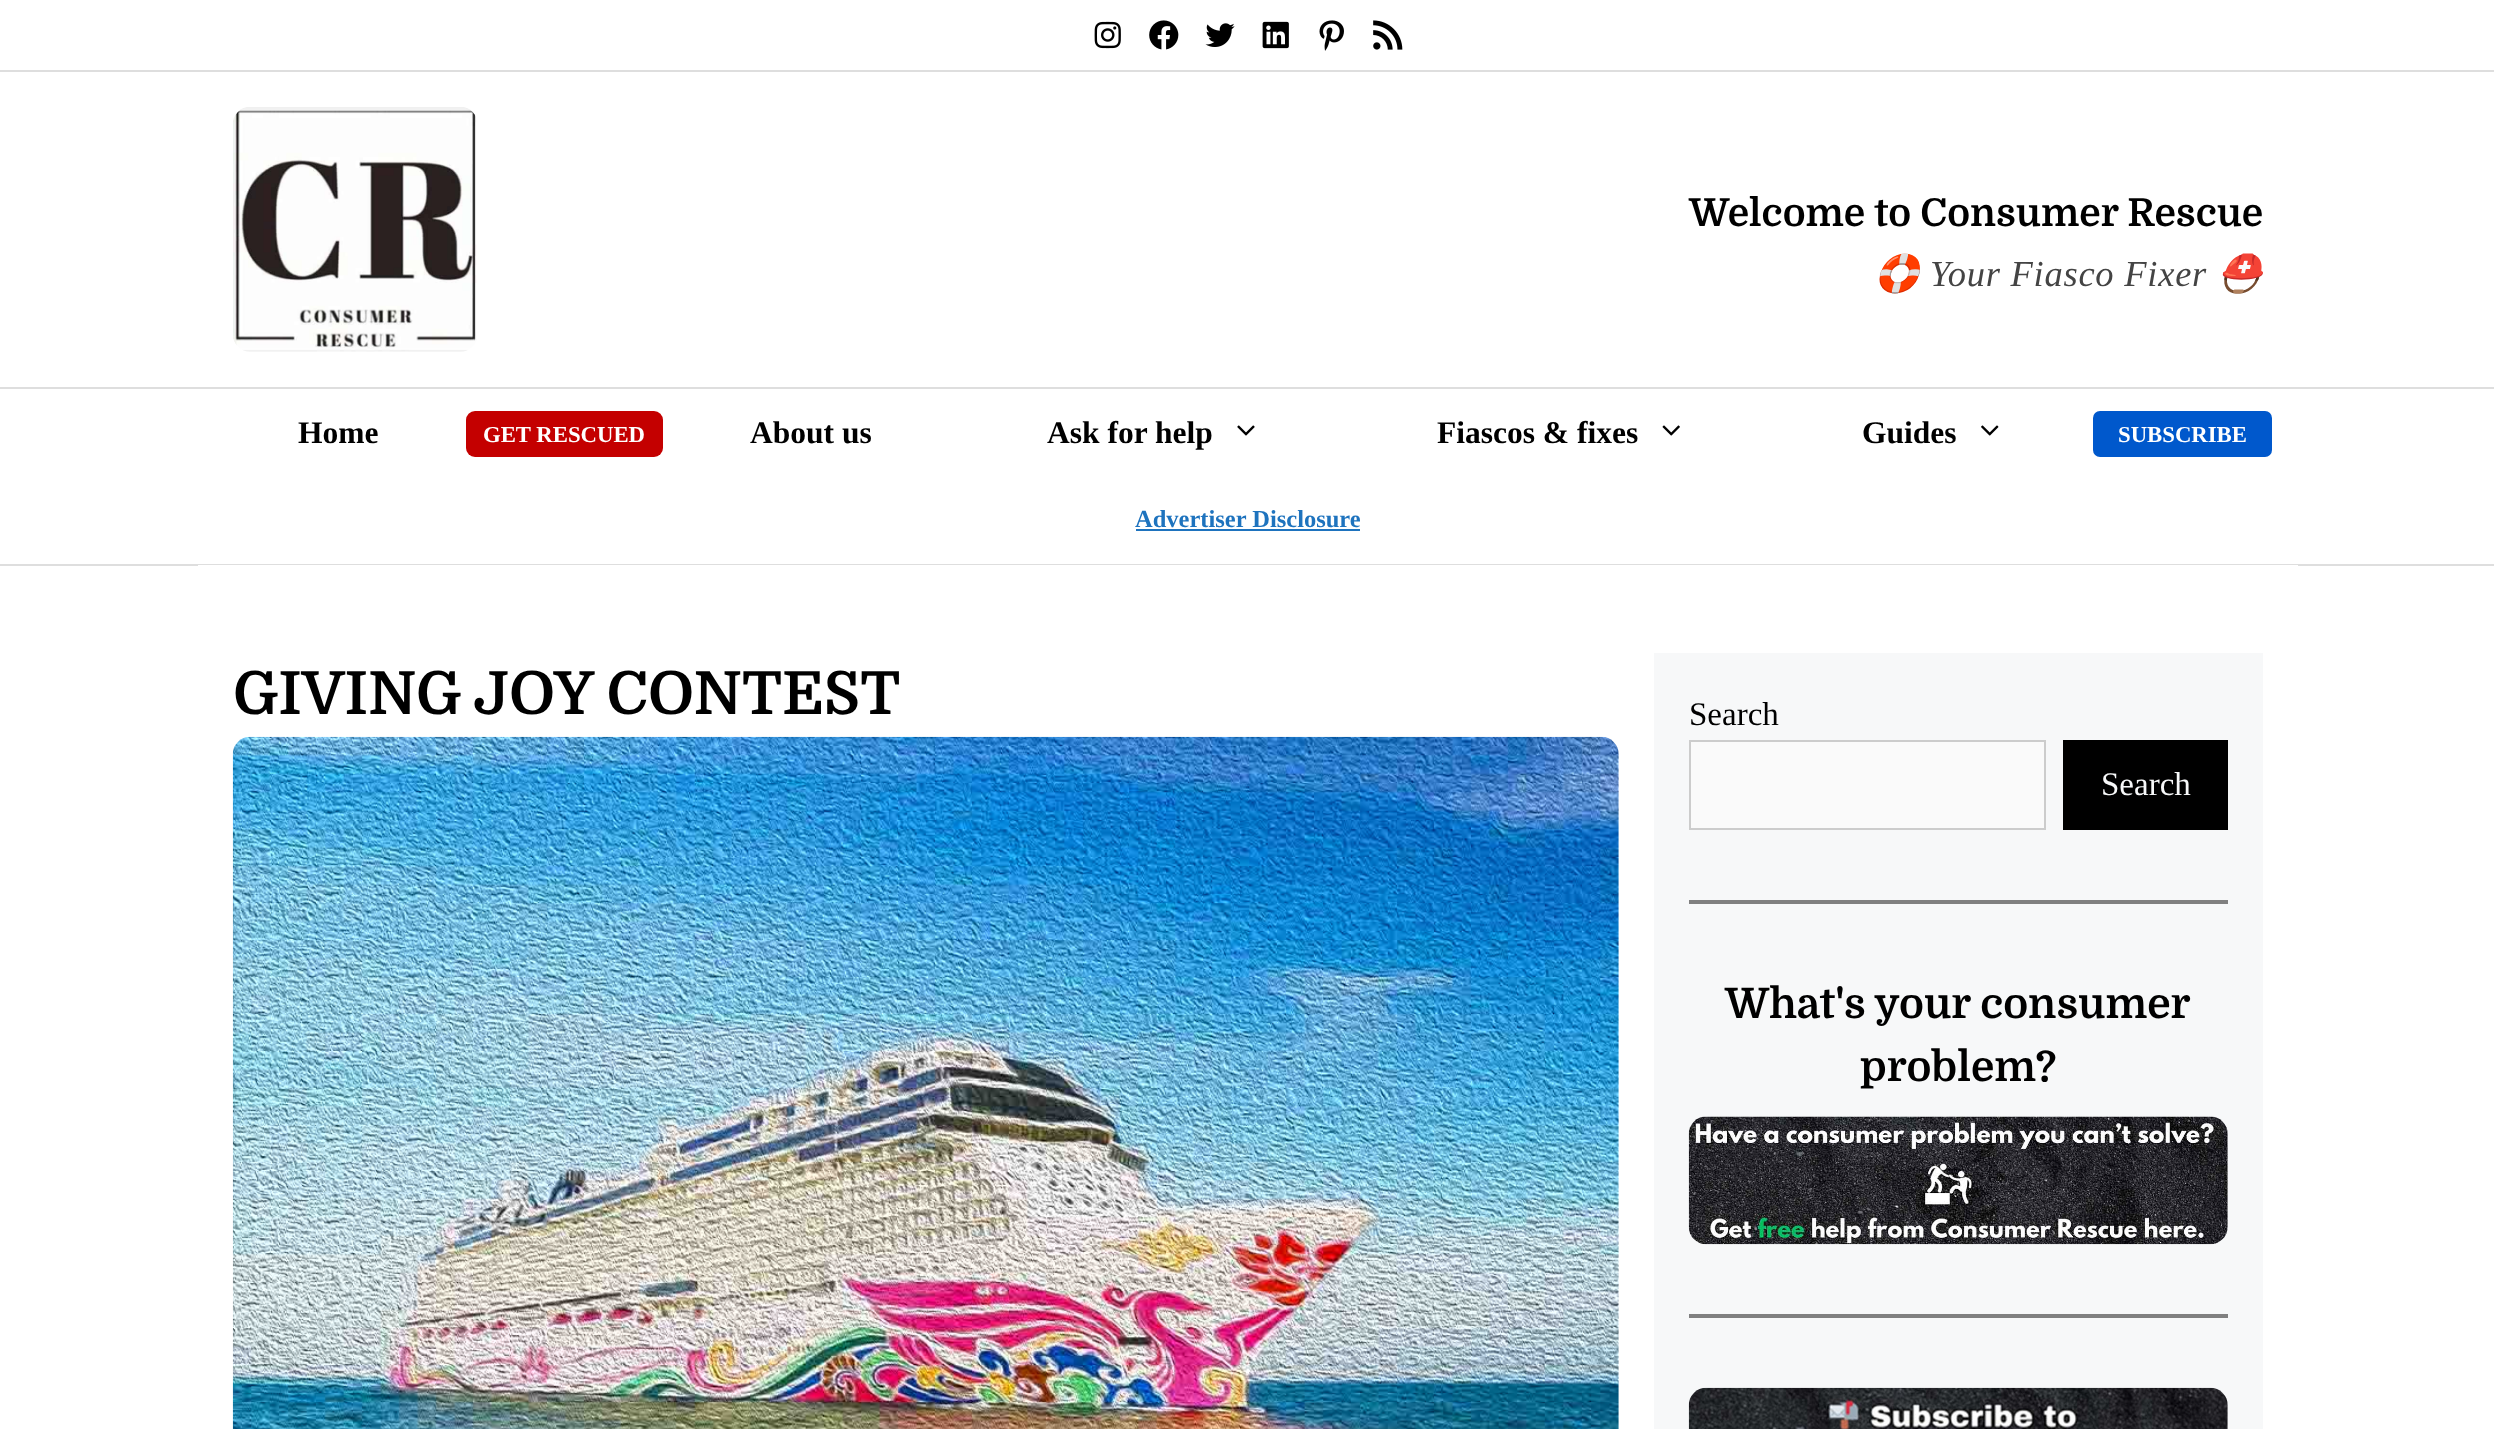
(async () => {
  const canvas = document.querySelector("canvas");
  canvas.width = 2494;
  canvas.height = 1429;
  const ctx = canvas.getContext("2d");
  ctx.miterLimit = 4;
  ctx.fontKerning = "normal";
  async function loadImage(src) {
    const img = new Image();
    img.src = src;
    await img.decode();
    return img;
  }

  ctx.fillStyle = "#ffffff";
  ctx.fillRect(0, 0, 2494, 1429);
  ctx.fillStyle = "#dedede";
  ctx.fillRect(0, 70, 2494, 2);
  ctx.drawImage(await loadImage("img/1.png"), 1094, 21, 27, 28);
  ctx.drawImage(await loadImage("img/2.png"), 1149, 20, 30, 30);
  ctx.drawImage(await loadImage("img/3.png"), 1205, 23, 30, 24);
  ctx.drawImage(await loadImage("img/4.png"), 1262, 21, 27, 28);
  ctx.drawImage(await loadImage("img/5.png"), 1319, 20, 25, 31);
  ctx.drawImage(await loadImage("img/6.png"), 1373, 20, 30, 30);
  ctx.drawImage(await loadImage("img/7.png"), 233, 107, 244, 245);
  ctx.fillRect(0, 387, 2494, 2);
  ctx.fillRect(0, 564, 2494, 2);
  ctx.fillStyle = "#c40000";
  ctx.beginPath();
  ctx.roundRect(466, 411, 197, 46, 9);
  ctx.fill();
  ctx.drawImage(await loadImage("img/8.png"), 1237, 425, 18, 11);
  ctx.drawImage(await loadImage("img/9.png"), 1662, 425, 18, 11);
  ctx.drawImage(await loadImage("img/10.png"), 1981, 425, 18, 11);
  ctx.fillStyle = "#0058cc";
  ctx.beginPath();
  ctx.roundRect(2093, 411, 179, 46, 7);
  ctx.fill();
  ctx.fillStyle = "#1e73be";
  ctx.fillRect(1136, 529, 224, 2);
  ctx.fillStyle = "#ffffff";
  ctx.fillRect(198, 565, 2100, 1);
  ctx.drawImage(await loadImage("img/11.png"), 232, 736, 1387, 693);
  ctx.fillStyle = "#f7f8f9";
  ctx.fillRect(1654, 653, 609, 776);
  ctx.fillStyle = "#fafafa";
  ctx.beginPath();
  ctx.rect(1690, 741, 355, 88);
  ctx.fill();
  ctx.strokeStyle = "#cccccc";
  ctx.lineWidth = 2;
  ctx.stroke();
  ctx.fillStyle = "#000000";
  ctx.fillRect(2063, 740, 165, 90);
  ctx.fillStyle = "#808080";
  ctx.fillRect(1689, 900, 539, 4);
  ctx.drawImage(await loadImage("img/12.png"), 1688, 1116, 540, 129);
  ctx.fillRect(1689, 1314, 539, 4);
  ctx.drawImage(await loadImage("img/13.png"), 1688, 1387, 540, 42);
  ctx.font = "bold 38.5px Domine";
  ctx.fillStyle = "#000000";
  ctx.fillText("Welcome to Consumer Rescue", 1689, 226);
  ctx.letterSpacing = "0.75px";
  ctx.font = "italic 36.5px Noto Color Emoji";
  ctx.fillStyle = "#444444";
  ctx.fillText("🛟", 1874, 286);
  ctx.font = "italic 36.5px Liberation Serif";
  ctx.fillText("Your Fiasco Fixer", 1930, 286);
  ctx.font = "italic 36.5px Noto Color Emoji";
  ctx.fillText("⛑️", 2217, 286);
  ctx.letterSpacing = "0px";
  ctx.font = "bold 31.5px Liberation Serif";
  ctx.fillStyle = "#000000";
  ctx.fillText("Home", 298, 443);
  ctx.font = "bold 22.75px Liberation Serif";
  ctx.fillStyle = "#ffffff";
  ctx.fillText("GET RESCUED", 483, 442);
  ctx.font = "bold 31.5px Liberation Serif";
  ctx.fillStyle = "#000000";
  for (const [text, x, y] of [
    ["About us", 750, 443],
    ["Ask for help", 1047, 443],
    ["Fiascos & fixes", 1437, 443],
    ["Guides", 1862, 443],
  ]) {
    ctx.fillText(text, x, y);
  }
  ctx.font = "bold 22.75px Liberation Serif";
  ctx.fillStyle = "#ffffff";
  ctx.fillText("SUBSCRIBE", 2118, 442);
  ctx.font = "bold 24.5px Liberation Serif";
  ctx.fillStyle = "#1e73be";
  ctx.fillText("Advertiser Disclosure", 1135, 527);
  ctx.font = "bold 59.5px Domine";
  ctx.fillStyle = "#000000";
  ctx.fillText("GIVING JOY CONTEST", 233, 714);
  ctx.font = "33px Liberation Serif";
  ctx.fillText("Search", 1689, 725);
  ctx.fillStyle = "#f7f8f9";
  ctx.fillText("Search", 2101, 795);
  ctx.font = "bold 42px Domine";
  ctx.fillStyle = "#000000";
  ctx.fillText("What's your consumer", 1725, 1018);
  ctx.fillText("problem?", 1860, 1081);
})();
